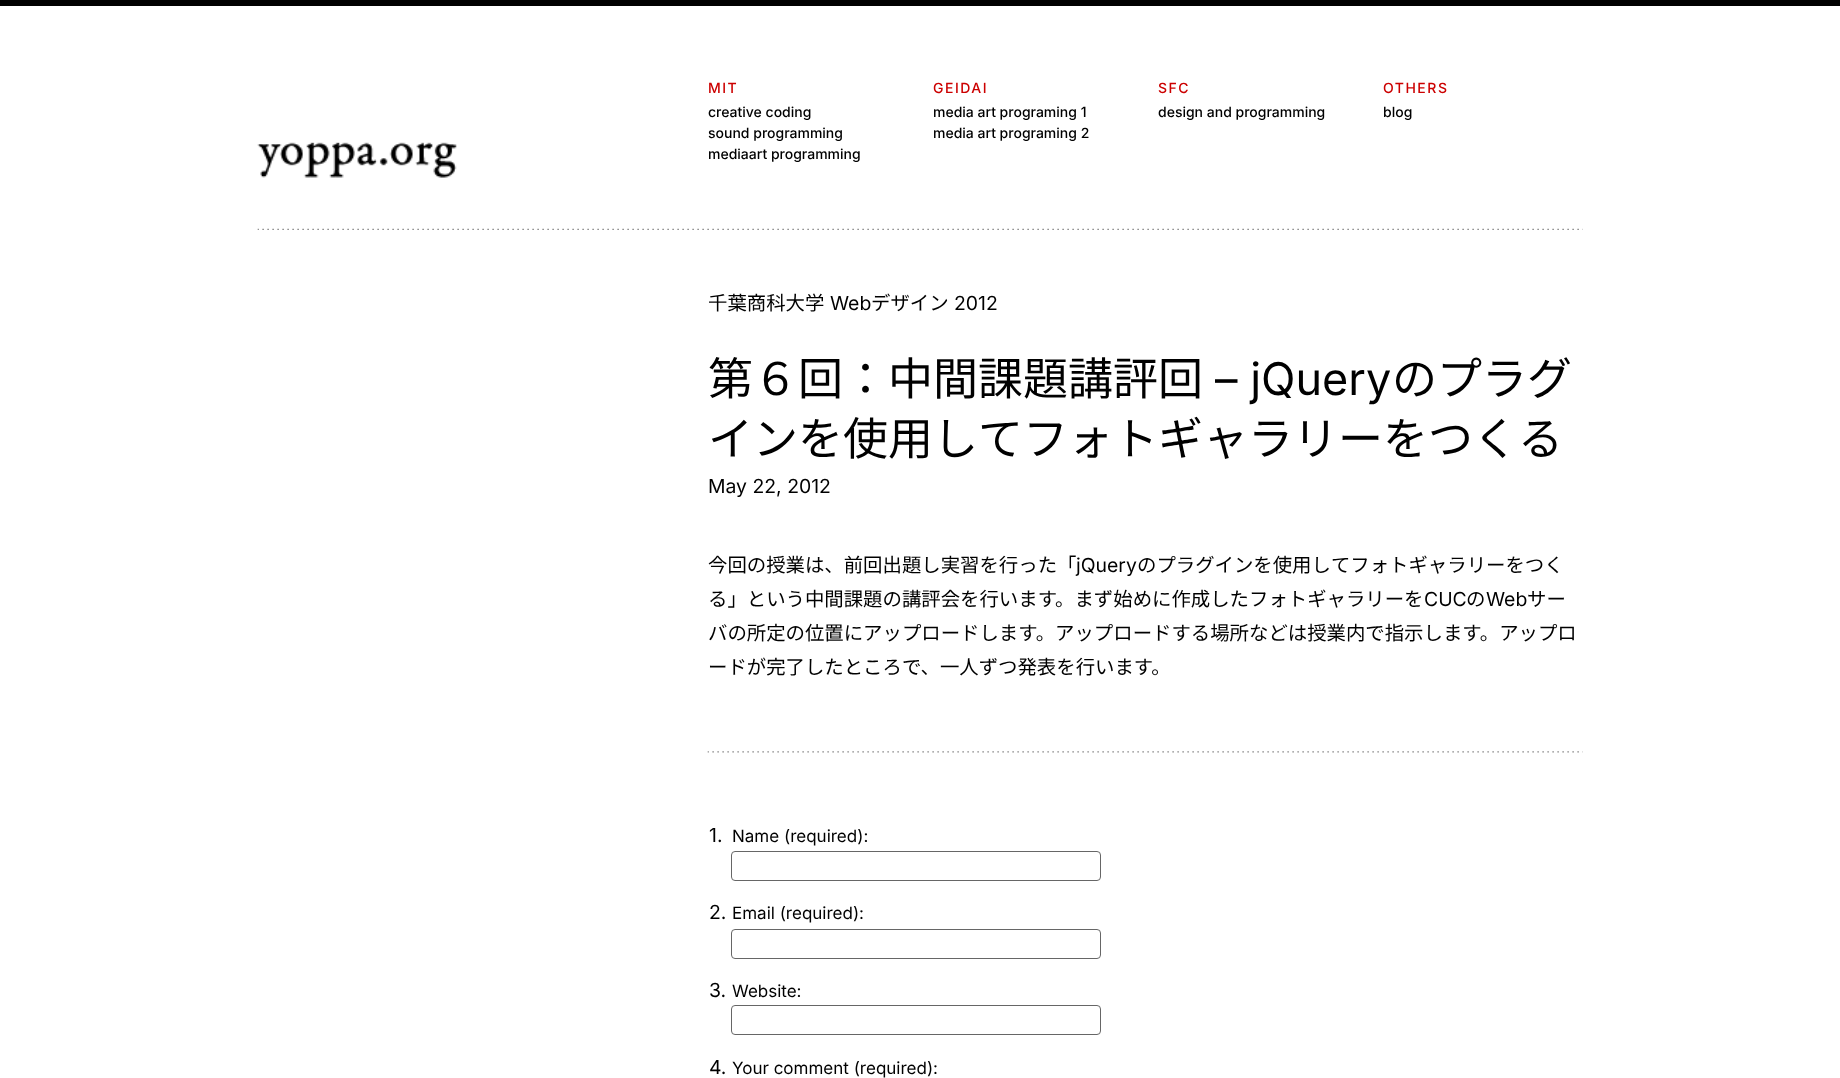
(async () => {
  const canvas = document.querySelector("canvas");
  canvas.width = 1840;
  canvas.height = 1078;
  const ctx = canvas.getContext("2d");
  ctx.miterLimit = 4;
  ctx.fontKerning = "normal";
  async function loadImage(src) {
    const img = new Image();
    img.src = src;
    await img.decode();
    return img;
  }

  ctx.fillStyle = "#ffffff";
  ctx.fillRect(0, 0, 1840, 1078);
  ctx.fillStyle = "#000000";
  ctx.fillRect(0, 0, 1840, 6);
  ctx.drawImage(await loadImage("img/1.png"), 257, 228, 1326, 2);
  ctx.drawImage(await loadImage("img/2.png"), 257, 142, 200, 36);
  ctx.drawImage(await loadImage("img/3.png"), 707, 751, 876, 2);
  ctx.beginPath();
  ctx.roundRect(731.5, 851.5, 369, 29, 3.5);
  ctx.strokeStyle = "#666666";
  ctx.stroke();
  ctx.beginPath();
  ctx.roundRect(731.5, 929.5, 369, 29, 3.5);
  ctx.stroke();
  ctx.beginPath();
  ctx.roundRect(731.5, 1005.5, 369, 29, 3.5);
  ctx.stroke();
  ctx.letterSpacing = "1.5px";
  ctx.font = "500 14px Inter";
  ctx.fillStyle = "#cc0000";
  ctx.fillText("MIT", 708, 93);
  ctx.letterSpacing = "0px";
  ctx.fillStyle = "#000000";
  for (const [text, x, y] of [
    ["creative coding", 708, 117],
    ["sound programming", 708, 138],
    ["mediaart programming", 708, 159],
  ]) {
    ctx.fillText(text, x, y);
  }
  ctx.letterSpacing = "1.5px";
  ctx.fillStyle = "#cc0000";
  ctx.fillText("GEIDAI", 933, 93);
  ctx.letterSpacing = "0px";
  ctx.fillStyle = "#000000";
  ctx.fillText("media art programing 1", 933, 117);
  ctx.fillText("media art programing 2", 933, 138);
  ctx.letterSpacing = "1.5px";
  ctx.fillStyle = "#cc0000";
  ctx.fillText("SFC", 1158, 93);
  ctx.letterSpacing = "0px";
  ctx.fillStyle = "#000000";
  ctx.fillText("design and programming", 1158, 117);
  ctx.letterSpacing = "1.5px";
  ctx.fillStyle = "#cc0000";
  ctx.fillText("OTHERS", 1383, 93);
  ctx.letterSpacing = "0px";
  ctx.fillStyle = "#000000";
  ctx.fillText("blog", 1383, 117);
  ctx.font = "19.4px Noto Sans JP";
  ctx.fillText("千葉商科大学", 708, 310);
  ctx.font = "19.4px Inter";
  ctx.fillText("Web", 830, 310);
  ctx.font = "19.4px Noto Sans JP";
  ctx.fillText("デザイン", 871, 310);
  ctx.font = "19.4px Inter";
  ctx.fillText("2012", 954, 310);
  ctx.font = "45px Noto Sans JP";
  ctx.fillText("第６回：中間課題講評回", 708, 395);
  ctx.font = "45px Inter";
  ctx.fillText("– jQuery", 1215, 395);
  ctx.font = "45px Noto Sans JP";
  ctx.fillText("のプラグ", 1392, 395);
  ctx.fillText("インを使用してフォトギャラリーをつくる", 708, 455);
  ctx.font = "19.4px Inter";
  ctx.fillText("May 22, 2012", 708, 493);
  ctx.font = "19.4px Noto Sans JP";
  ctx.fillText("今回の授業は、前回出題し実習を行った「", 708, 572);
  ctx.font = "19.4px Inter";
  ctx.fillText("jQuery", 1076, 572);
  ctx.font = "19.4px Noto Sans JP";
  ctx.fillText("のプラグインを使用してフォトギャラリーをつく", 1137, 572);
  ctx.fillText("る」という中間課題の講評会を行います。まず始めに作成したフォトギャラリーを", 708, 606);
  ctx.font = "19.4px Inter";
  ctx.fillText("CUC", 1424, 606);
  ctx.font = "19.4px Noto Sans JP";
  ctx.fillText("の", 1466, 606);
  ctx.font = "19.4px Inter";
  ctx.fillText("Web", 1486, 606);
  ctx.font = "19.4px Noto Sans JP";
  for (const [text, x, y] of [
    ["サー", 1527, 606],
    ["バの所定の位置にアップロードします。アップロードする場所などは授業内で指示します。アップロ", 708, 640],
    ["ードが完了したところで、一人ずつ発表を行います。", 708, 674],
  ]) {
    ctx.fillText(text, x, y);
  }
  ctx.font = "19.4px Inter";
  ctx.fillText("1.", 709, 842);
  ctx.font = "17px Inter";
  ctx.fillText("Name (required):", 732, 842);
  ctx.font = "19.4px Inter";
  ctx.fillText("2.", 709, 919);
  ctx.font = "17px Inter";
  ctx.fillText("Email (required):", 732, 919);
  ctx.font = "19.4px Inter";
  ctx.fillText("3.", 709, 997);
  ctx.font = "17px Inter";
  ctx.fillText("Website:", 732, 997);
  ctx.font = "19.4px Inter";
  ctx.fillText("4.", 709, 1074);
  ctx.font = "17px Inter";
  ctx.fillText("Your comment (required):", 732, 1074);
})();
